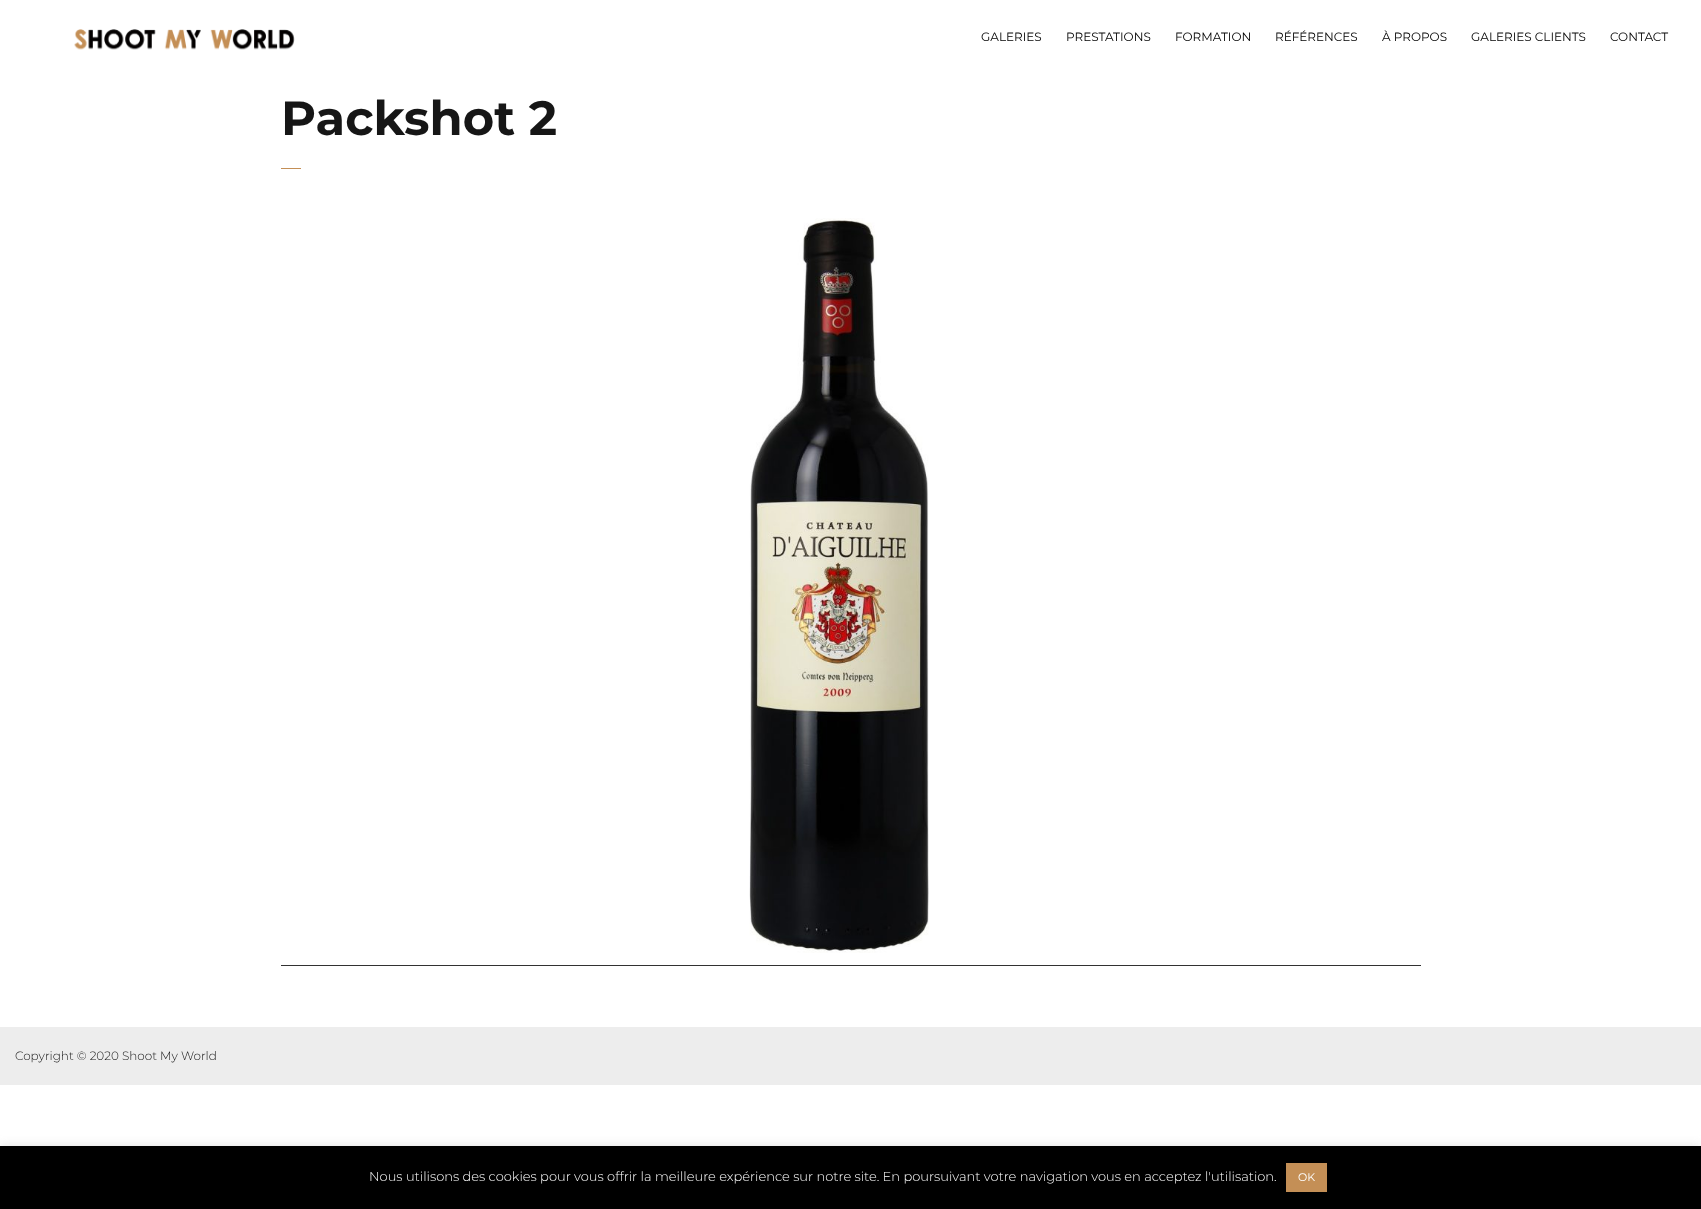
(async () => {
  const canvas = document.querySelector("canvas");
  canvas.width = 1701;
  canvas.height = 1209;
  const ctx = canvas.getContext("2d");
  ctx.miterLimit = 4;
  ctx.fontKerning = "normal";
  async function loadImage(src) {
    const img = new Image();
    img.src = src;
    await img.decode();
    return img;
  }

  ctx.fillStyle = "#ffffff";
  ctx.fillRect(0, 0, 1701, 1209);
  ctx.drawImage(await loadImage("img/1.png"), 74, 29, 221, 21);
  ctx.fillStyle = "#c48f56";
  ctx.fillRect(281, 168, 20, 1);
  ctx.drawImage(await loadImage("img/2.png"), 749, 218, 180, 735);
  ctx.fillStyle = "#323232";
  ctx.fillRect(281, 965, 1140, 1);
  ctx.fillStyle = "#ededed";
  ctx.fillRect(0, 1027, 1701, 58);
  ctx.fillStyle = "rgba(172, 171, 171, 0.3)";
  ctx.filter = "blur(5px)";
  ctx.beginPath();
  ctx.rect(0, 1145, 1701, 63);
  ctx.fill();
  ctx.filter = "none";
  ctx.fillStyle = "#000000";
  ctx.fillRect(0, 1146, 1701, 63);
  ctx.fillStyle = "#c48f56";
  ctx.fillRect(1286, 1163, 41, 29);
  ctx.font = "12px Montserrat";
  ctx.fillStyle = "#000000";
  for (const [text, x, y] of [
    ["GALERIES", 981, 41],
    ["PRESTATIONS", 1066, 41],
    ["FORMATION", 1175, 41],
    ["RÉFÉRENCES", 1275, 41],
    ["À PROPOS", 1382, 41],
    ["GALERIES CLIENTS", 1471, 41],
    ["CONTACT", 1610, 41],
  ]) {
    ctx.fillText(text, x, y);
  }
  ctx.font = "bold 48px Montserrat";
  ctx.fillStyle = "#161616";
  ctx.fillText("Packshot 2", 281, 135);
  ctx.font = "300 12px Montserrat";
  ctx.fillText("Copyright © 2020 Shoot My World", 15, 1060);
  ctx.font = "300 13px Montserrat";
  ctx.fillStyle = "#ffffff";
  ctx.fillText("Nous utilisons des cookies pour vous offrir la meilleure expérience sur notre site. En poursuivant votre navigation vous en acceptez l'utilisation.", 369, 1181);
  ctx.font = "11px Montserrat";
  ctx.fillText("OK", 1298, 1181);
})();
